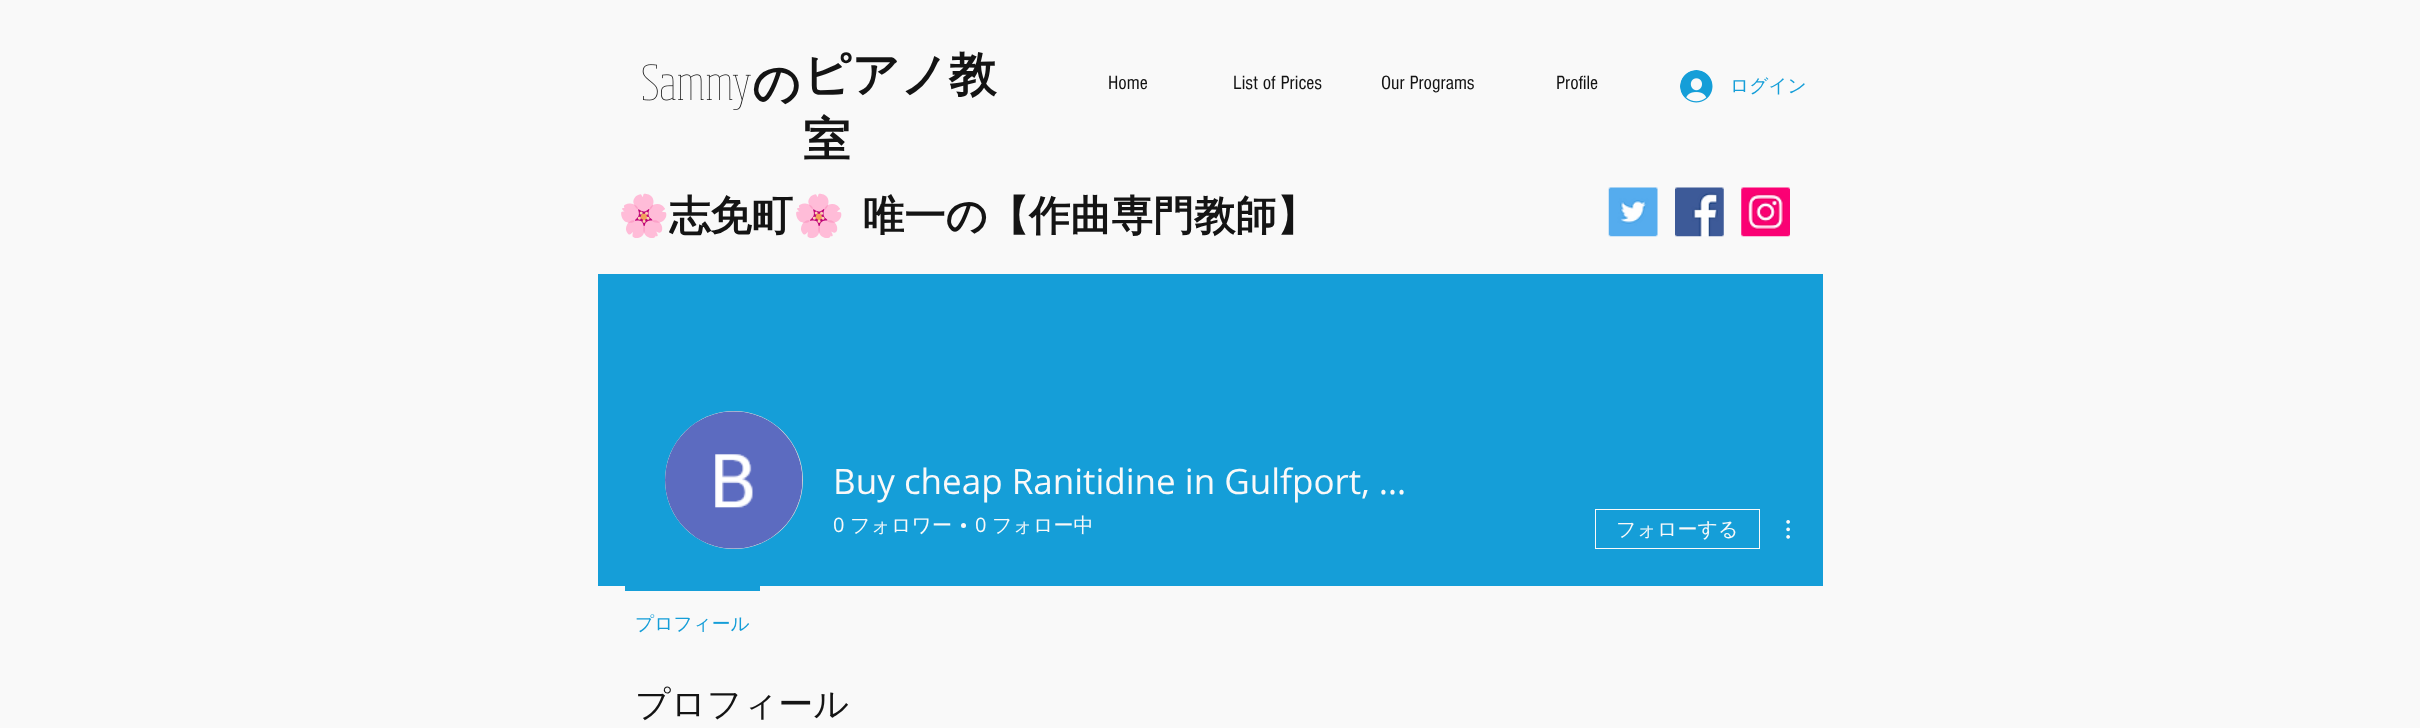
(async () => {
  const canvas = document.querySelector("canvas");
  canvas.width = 2420;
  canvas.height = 728;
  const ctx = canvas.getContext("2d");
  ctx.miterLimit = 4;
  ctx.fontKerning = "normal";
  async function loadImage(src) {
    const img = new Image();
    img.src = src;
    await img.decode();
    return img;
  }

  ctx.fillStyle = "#f9f9f9";
  ctx.fillRect(0, 0, 2420, 728);
  ctx.drawImage(await loadImage("img/1.png"), 642, 64, 109, 46);
  ctx.drawImage(await loadImage("img/2.png"), 1680, 70, 33, 33);
  ctx.drawImage(await loadImage("img/3.png"), 1608, 187, 50, 50);
  ctx.drawImage(await loadImage("img/4.png"), 1675, 187, 49, 50);
  ctx.drawImage(await loadImage("img/5.png"), 1741, 187, 49, 50);
  ctx.fillStyle = "#159ed8";
  ctx.fillRect(598, 274, 1225, 312);
  ctx.fillStyle = "#d8d8d8";
  ctx.beginPath();
  ctx.arc(734, 480, 69, 0, Math.PI * 2);
  ctx.fill();
  ctx.drawImage(await loadImage("img/6.png"), 665, 411, 138, 138);
  ctx.fillStyle = "#f9f9f9";
  ctx.beginPath();
  ctx.arc(963.5, 525.5, 2.5, 0, Math.PI * 2);
  ctx.fill();
  ctx.strokeStyle = "#f9f9f9";
  ctx.strokeRect(1595.5, 509.5, 164, 39);
  ctx.drawImage(await loadImage("img/7.png"), 1786, 520, 4, 19);
  ctx.fillStyle = "#159ed8";
  ctx.fillRect(625, 586, 135, 5);
  ctx.font = "bold 47.5px WenQuanYi Zen Hei";
  ctx.fillStyle = "#141414";
  for (const [text, x, y] of [
    ["の", 752, 100],
    ["ピアノ教", 803, 91],
    ["室", 803, 156],
  ]) {
    ctx.fillText(text, x, y);
  }
  ctx.font = "20px 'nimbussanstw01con'";
  for (const [text, x, y] of [
    ["Home", 1108, 89],
    ["List of Prices", 1233, 89],
    ["Our Programs", 1381, 89],
    ["Profile", 1556, 89],
  ]) {
    ctx.fillText(text, x, y);
  }
  ctx.font = "500 18.75px WenQuanYi Zen Hei";
  ctx.fillStyle = "#159ed8";
  ctx.fillText("ログイン", 1730, 92);
  ctx.font = "bold 41.25px Noto Color Emoji";
  ctx.fillStyle = "#141414";
  ctx.fillText("🌸", 618, 230);
  ctx.font = "bold 41.25px WenQuanYi Zen Hei";
  ctx.fillText("志免町", 669, 230);
  ctx.font = "bold 41.25px Noto Color Emoji";
  ctx.fillText("🌸", 793, 230);
  ctx.font = "bold 41.25px WenQuanYi Zen Hei";
  ctx.fillText("唯一の【作曲専門教師】", 863, 230);
  ctx.font = "35px Open Sans";
  ctx.fillStyle = "#f9f9f9";
  ctx.fillText("Buy cheap Ranitidine in Gulfport, …", 833, 494);
  ctx.font = "20px Open Sans";
  ctx.fillText("0", 833, 532);
  ctx.font = "500 20px WenQuanYi Zen Hei";
  ctx.fillText("フォロワー", 850, 532);
  ctx.font = "20px Open Sans";
  ctx.fillText("0", 975, 532);
  ctx.font = "500 20px WenQuanYi Zen Hei";
  ctx.fillText("フォロー中", 992, 532);
  ctx.fillText("フォローする", 1616, 536);
  ctx.font = "500 18.75px WenQuanYi Zen Hei";
  ctx.fillStyle = "#159ed8";
  ctx.fillText("プロフィール", 635, 630);
  ctx.font = "500 35px WenQuanYi Zen Hei";
  ctx.fillStyle = "#141414";
  ctx.fillText("プロフィール", 635, 716);
})();
